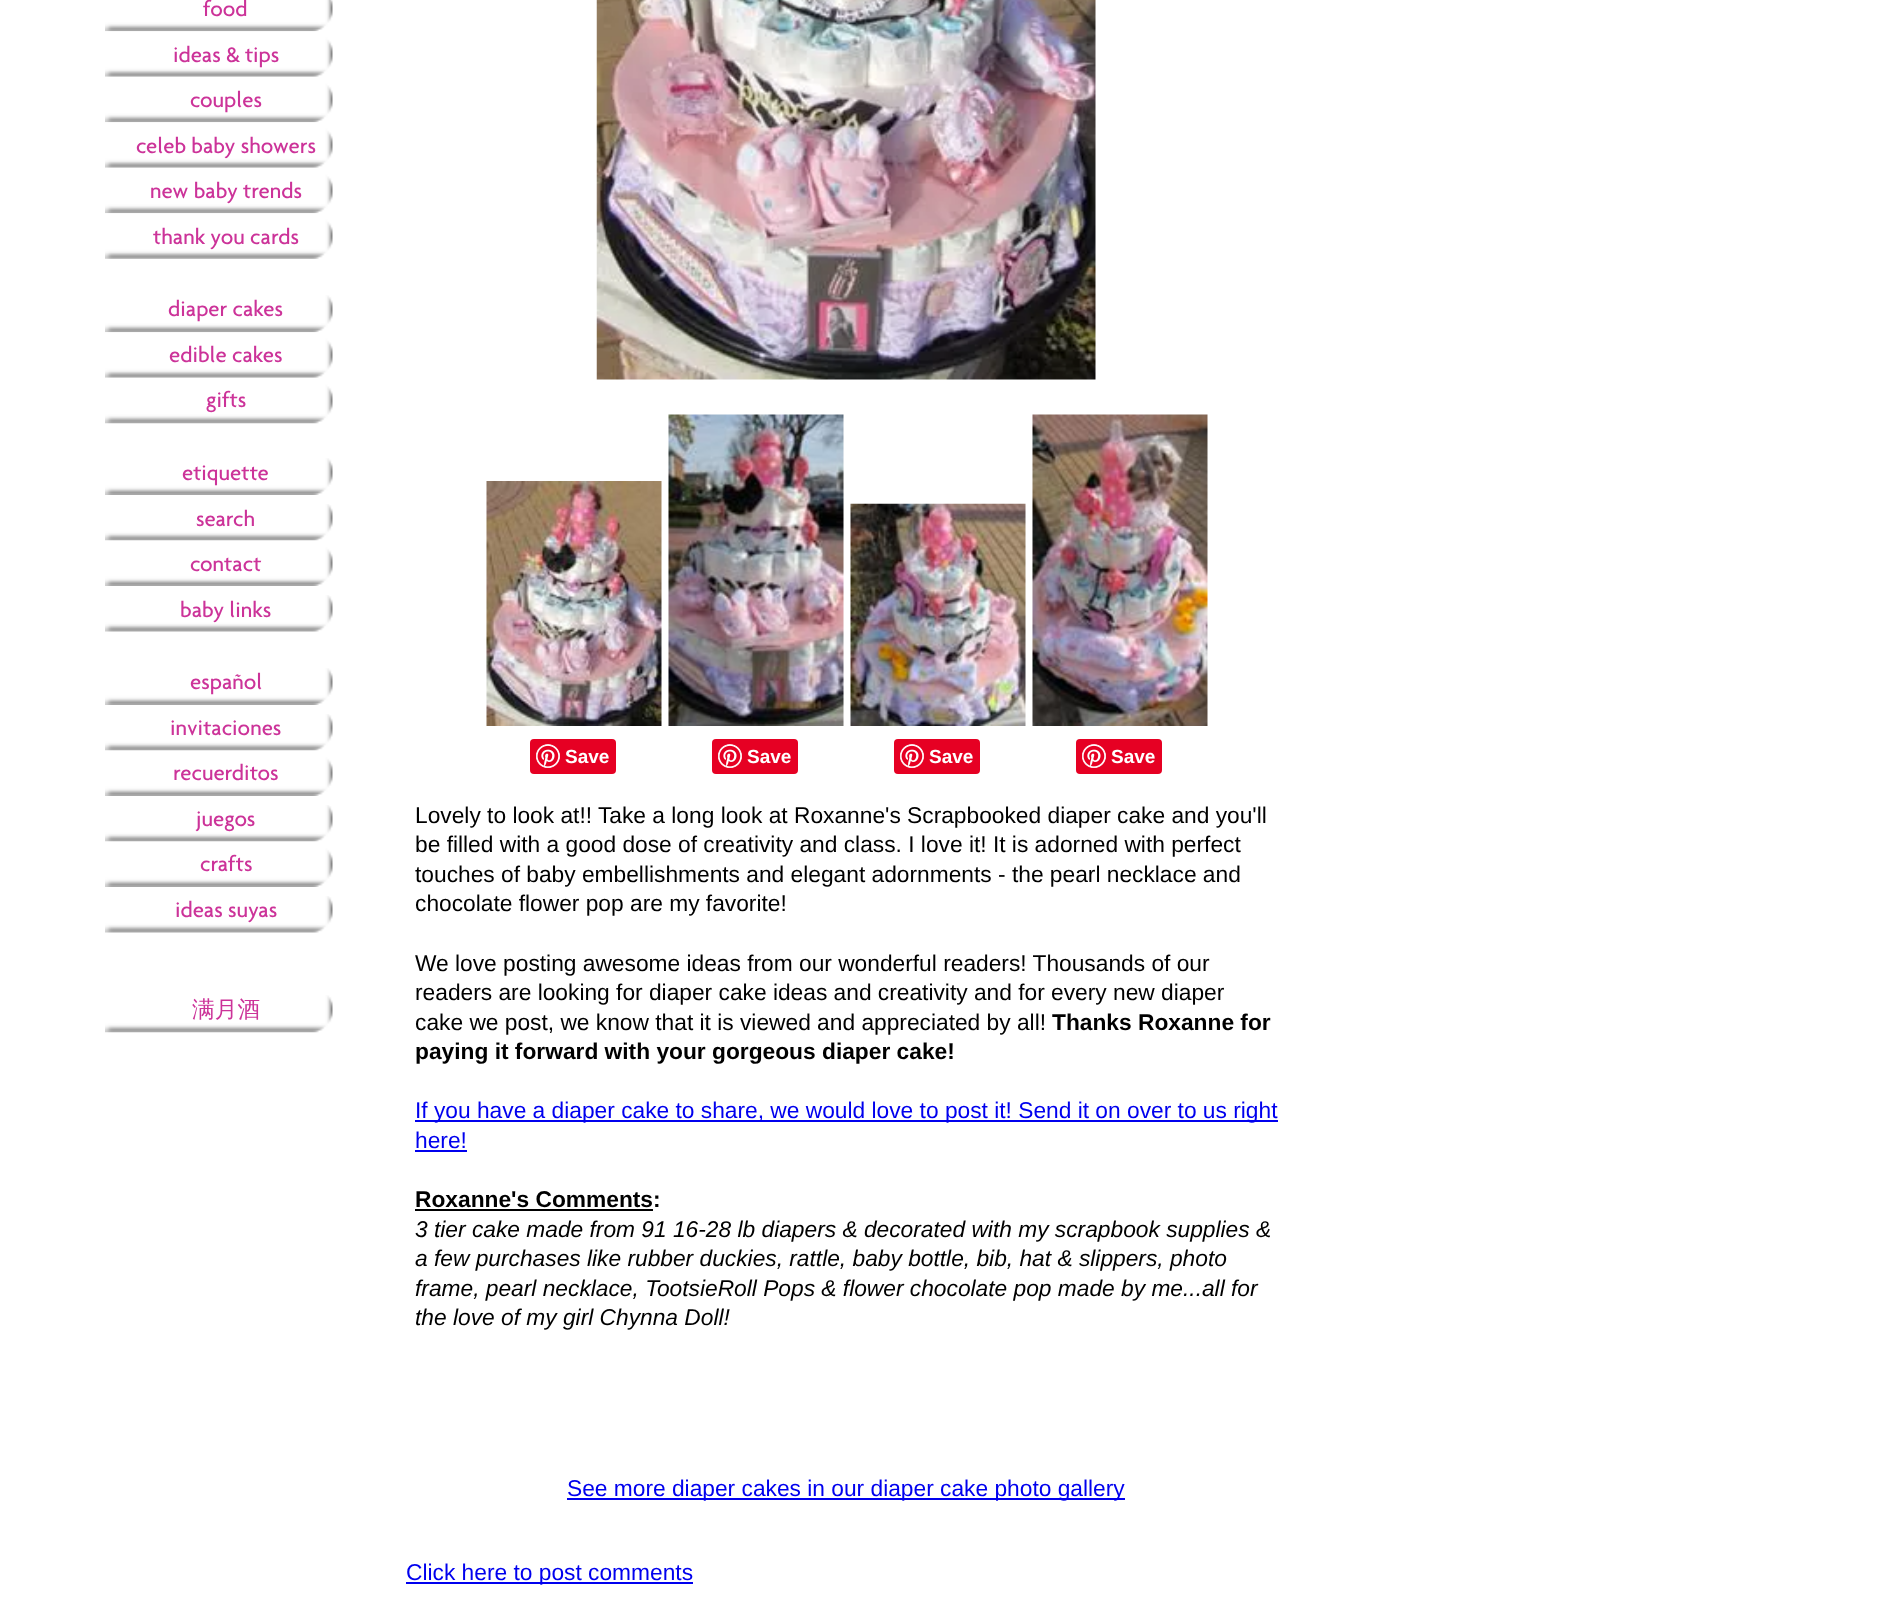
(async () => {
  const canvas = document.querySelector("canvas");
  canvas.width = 1904;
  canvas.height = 1620;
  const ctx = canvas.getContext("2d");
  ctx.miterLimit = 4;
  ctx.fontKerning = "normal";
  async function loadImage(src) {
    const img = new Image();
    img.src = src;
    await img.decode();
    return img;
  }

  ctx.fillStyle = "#ffffff";
  ctx.fillRect(0, 0, 1904, 1620);
  ctx.drawImage(await loadImage("img/1.png"), 105, 0, 228, 32);
  ctx.drawImage(await loadImage("img/2.png"), 105, 31, 228, 46);
  ctx.drawImage(await loadImage("img/3.png"), 105, 76, 228, 47);
  ctx.drawImage(await loadImage("img/2.png"), 105, 122, 228, 46);
  ctx.drawImage(await loadImage("img/3.png"), 105, 167, 228, 47);
  ctx.drawImage(await loadImage("img/2.png"), 105, 213, 228, 46);
  ctx.drawImage(await loadImage("img/4.png"), 105, 295, 228, 38);
  ctx.drawImage(await loadImage("img/2.png"), 105, 332, 228, 46);
  ctx.drawImage(await loadImage("img/3.png"), 105, 377, 228, 47);
  ctx.drawImage(await loadImage("img/5.png"), 105, 458, 228, 37);
  ctx.drawImage(await loadImage("img/6.png"), 105, 504, 228, 37);
  ctx.drawImage(await loadImage("img/7.png"), 105, 540, 228, 46);
  ctx.drawImage(await loadImage("img/6.png"), 105, 595, 228, 37);
  ctx.drawImage(await loadImage("img/5.png"), 105, 668, 228, 37);
  ctx.drawImage(await loadImage("img/6.png"), 105, 714, 228, 37);
  ctx.drawImage(await loadImage("img/7.png"), 105, 750, 228, 46);
  ctx.drawImage(await loadImage("img/6.png"), 105, 805, 228, 37);
  ctx.drawImage(await loadImage("img/7.png"), 105, 841, 228, 46);
  ctx.drawImage(await loadImage("img/6.png"), 105, 896, 228, 37);
  ctx.drawImage(await loadImage("img/4.png"), 105, 995, 228, 38);
  ctx.drawImage(await loadImage("img/8.png"), 596, 0, 500, 380);
  ctx.drawImage(await loadImage("img/9.png"), 486, 481, 176, 245);
  ctx.fillStyle = "#e60023";
  ctx.beginPath();
  ctx.roundRect(530, 739, 86, 35, 4);
  ctx.fill();
  ctx.drawImage(await loadImage("img/10.png"), 536, 744, 24, 24);
  ctx.drawImage(await loadImage("img/11.png"), 668, 414, 176, 312);
  ctx.beginPath();
  ctx.roundRect(712, 739, 86, 35, 4);
  ctx.fill();
  ctx.drawImage(await loadImage("img/10.png"), 718, 744, 24, 24);
  ctx.drawImage(await loadImage("img/12.png"), 850, 503, 176, 223);
  ctx.beginPath();
  ctx.roundRect(894, 739, 86, 35, 4);
  ctx.fill();
  ctx.drawImage(await loadImage("img/10.png"), 900, 744, 24, 24);
  ctx.drawImage(await loadImage("img/13.png"), 1032, 414, 176, 312);
  ctx.beginPath();
  ctx.roundRect(1076, 739, 86, 35, 4);
  ctx.fill();
  ctx.drawImage(await loadImage("img/10.png"), 1082, 744, 24, 24);
  for (const [x, y, w, h, color] of [
    [415, 1120, 863, 2, "#0000ee"],
    [415, 1150, 52, 2, "#0000ee"],
    [415, 1209, 238, 2, "#000000"],
    [567, 1498, 558, 2, "#0000ee"],
    [406, 1582, 287, 2, "#0000ee"],
  ]) {
    ctx.fillStyle = color;
    ctx.fillRect(x, y, w, h);
  }
  ctx.font = "22.75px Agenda";
  ctx.fillStyle = "#cc3399";
  for (const [text, x, y] of [
    ["food", 203, 16],
    ["ideas & tips", 173, 62],
    ["couples", 190, 107],
    ["celeb baby showers", 136, 153],
    ["new baby trends", 150, 198],
    ["thank you cards", 153, 244],
    ["diaper cakes", 168, 316],
    ["edible cakes", 169, 362],
    ["gifts", 206, 407],
    ["etiquette", 182, 480],
    ["search", 196, 526],
    ["contact", 190, 571],
    ["baby links", 180, 617],
    ["español", 190, 689],
    ["invitaciones", 170, 735],
    ["recuerditos", 173, 780],
    ["juegos", 196, 826],
    ["crafts", 200, 871],
    ["ideas suyas", 175, 917],
  ]) {
    ctx.fillText(text, x, y);
  }
  ctx.font = "500 22.75px WenQuanYi Zen Hei";
  ctx.fillText("满月酒", 192, 1017);
  ctx.font = "bold 19px Liberation Sans";
  ctx.fillStyle = "#ffffff";
  for (const [text, x, y] of [
    ["Save", 565, 763],
    ["Save", 747, 763],
    ["Save", 929, 763],
    ["Save", 1111, 763],
  ]) {
    ctx.fillText(text, x, y);
  }
  ctx.font = "22.75px Liberation Sans";
  ctx.fillStyle = "#000000";
  for (const [text, x, y] of [
    ["Lovely to look at!! Take a long look at Roxanne's Scrapbooked diaper cake and you'll", 415, 823],
    ["be filled with a good dose of creativity and class. I love it! It is adorned with perfect", 415, 852],
    ["touches of baby embellishments and elegant adornments - the pearl necklace and", 415, 882],
    ["chocolate flower pop are my favorite!", 415, 911],
    ["We love posting awesome ideas from our wonderful readers! Thousands of our", 415, 971],
    ["readers are looking for diaper cake ideas and creativity and for every new diaper", 415, 1000],
    ["cake we post, we know that it is viewed and appreciated by all!", 415, 1030],
  ]) {
    ctx.fillText(text, x, y);
  }
  ctx.font = "bold 22.75px Liberation Sans";
  ctx.fillText("Thanks Roxanne for", 1052, 1030);
  ctx.fillText("paying it forward with your gorgeous diaper cake!", 415, 1059);
  ctx.font = "22.75px Liberation Sans";
  ctx.fillStyle = "#0000ee";
  ctx.fillText("If you have a diaper cake to share, we would love to post it! Send it on over to us right", 415, 1118);
  ctx.fillText("here!", 415, 1148);
  ctx.font = "bold 22.75px Liberation Sans";
  ctx.fillStyle = "#000000";
  ctx.fillText("Roxanne's Comments:", 415, 1207);
  ctx.font = "italic 22.75px Liberation Sans";
  for (const [text, x, y] of [
    ["3 tier cake made from 91 16-28 lb diapers & decorated with my scrapbook supplies &", 415, 1237],
    ["a few purchases like rubber duckies, rattle, baby bottle, bib, hat & slippers, photo", 415, 1266],
    ["frame, pearl necklace, TootsieRoll Pops & flower chocolate pop made by me...all for", 415, 1296],
    ["the love of my girl Chynna Doll!", 415, 1325],
  ]) {
    ctx.fillText(text, x, y);
  }
  ctx.font = "22.75px Liberation Sans";
  ctx.fillStyle = "#0000ee";
  ctx.fillText("See more diaper cakes in our diaper cake photo gallery", 567, 1496);
  ctx.fillText("Click here to post comments", 406, 1580);
})();
